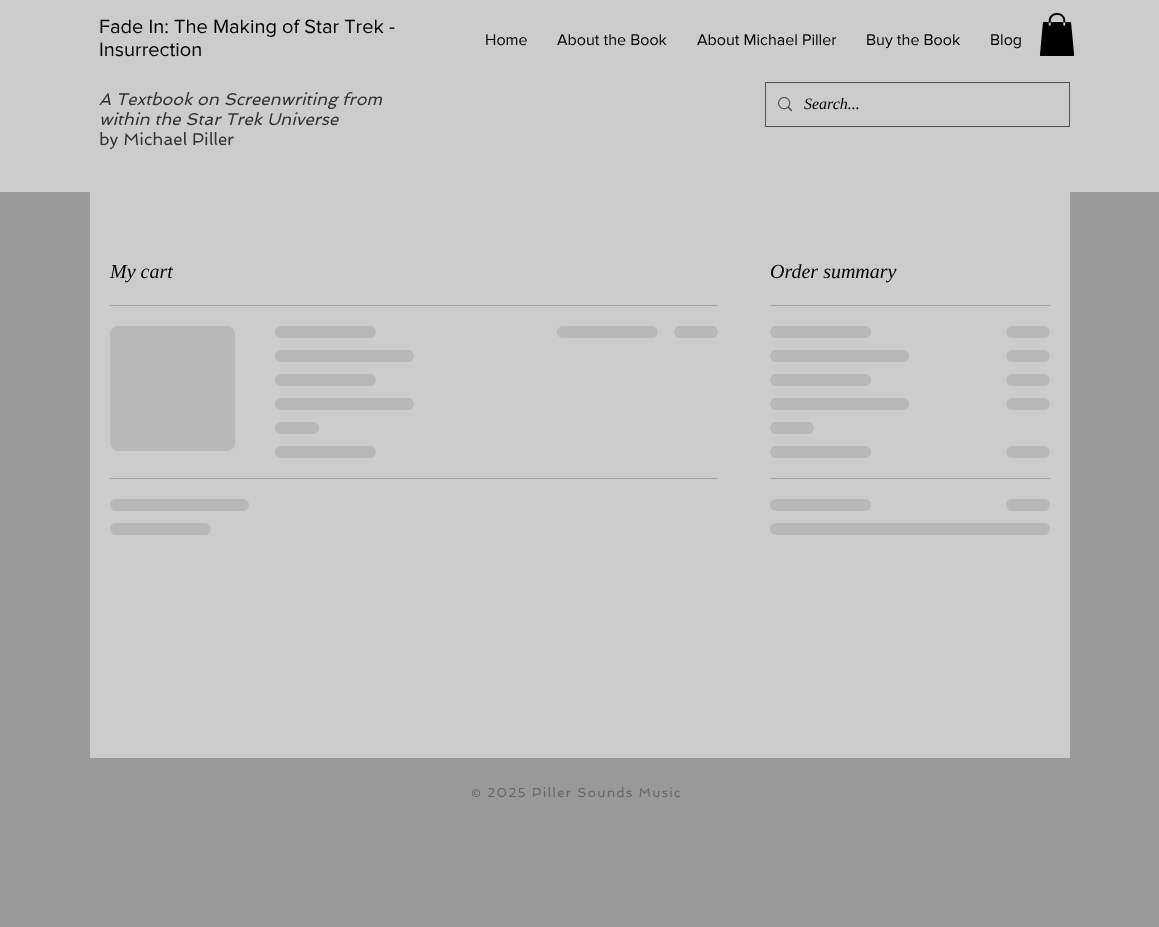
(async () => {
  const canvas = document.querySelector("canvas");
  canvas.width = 1159;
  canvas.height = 927;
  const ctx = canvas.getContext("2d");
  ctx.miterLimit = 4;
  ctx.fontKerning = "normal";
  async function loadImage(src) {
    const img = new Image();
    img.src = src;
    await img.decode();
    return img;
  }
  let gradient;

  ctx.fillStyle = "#999999";
  ctx.fillRect(0, 0, 1159, 927);
  ctx.fillStyle = "#cccccc";
  ctx.fillRect(0, 0, 1159, 192);
  ctx.drawImage(await loadImage("img/1.png"), 1039, 13, 36, 43);
  ctx.strokeStyle = "#525252";
  ctx.strokeRect(765.5, 82.5, 304, 44);
  ctx.drawImage(await loadImage("img/2.png"), 778, 97, 14, 15);
  ctx.fillRect(90, 192, 980, 566);
  ctx.fillStyle = "#a3a3a3";
  ctx.fillRect(110, 305, 608, 1);
  gradient = ctx.createLinearGradient(110, 389, 610, 389);
  gradient.addColorStop(0.25, "#b8b8b8");
  gradient.addColorStop(0.37, "#a3a3a3");
  gradient.addColorStop(0.63, "#b8b8b8");
  ctx.fillStyle = gradient;
  ctx.beginPath();
  ctx.roundRect(110, 326, 125, 125, 8);
  ctx.fill();
  gradient = ctx.createLinearGradient(275, 332, 679, 332);
  gradient.addColorStop(0.25, "#b8b8b8");
  gradient.addColorStop(0.37, "#a3a3a3");
  gradient.addColorStop(0.63, "#b8b8b8");
  ctx.fillStyle = gradient;
  ctx.beginPath();
  ctx.roundRect(275, 326, 101, 12, 6);
  ctx.fill();
  gradient = ctx.createLinearGradient(275, 356, 831, 356);
  gradient.addColorStop(0.25, "#b8b8b8");
  gradient.addColorStop(0.37, "#a3a3a3");
  gradient.addColorStop(0.63, "#b8b8b8");
  ctx.fillStyle = gradient;
  ctx.beginPath();
  ctx.roundRect(275, 350, 139, 12, 6);
  ctx.fill();
  gradient = ctx.createLinearGradient(275, 380, 679, 380);
  gradient.addColorStop(0.25, "#b8b8b8");
  gradient.addColorStop(0.37, "#a3a3a3");
  gradient.addColorStop(0.63, "#b8b8b8");
  ctx.fillStyle = gradient;
  ctx.beginPath();
  ctx.roundRect(275, 374, 101, 12, 6);
  ctx.fill();
  gradient = ctx.createLinearGradient(275, 404, 831, 404);
  gradient.addColorStop(0.25, "#b8b8b8");
  gradient.addColorStop(0.37, "#a3a3a3");
  gradient.addColorStop(0.63, "#b8b8b8");
  ctx.fillStyle = gradient;
  ctx.beginPath();
  ctx.roundRect(275, 398, 139, 12, 6);
  ctx.fill();
  gradient = ctx.createLinearGradient(275, 428, 451, 428);
  gradient.addColorStop(0.25, "#b8b8b8");
  gradient.addColorStop(0.37, "#a3a3a3");
  gradient.addColorStop(0.63, "#b8b8b8");
  ctx.fillStyle = gradient;
  ctx.beginPath();
  ctx.roundRect(275, 422, 44, 12, 6);
  ctx.fill();
  gradient = ctx.createLinearGradient(275, 452, 679, 452);
  gradient.addColorStop(0.25, "#b8b8b8");
  gradient.addColorStop(0.37, "#a3a3a3");
  gradient.addColorStop(0.63, "#b8b8b8");
  ctx.fillStyle = gradient;
  ctx.beginPath();
  ctx.roundRect(275, 446, 101, 12, 6);
  ctx.fill();
  gradient = ctx.createLinearGradient(557, 332, 961, 332);
  gradient.addColorStop(0.25, "#b8b8b8");
  gradient.addColorStop(0.37, "#a3a3a3");
  gradient.addColorStop(0.63, "#b8b8b8");
  ctx.fillStyle = gradient;
  ctx.beginPath();
  ctx.roundRect(557, 326, 101, 12, 6);
  ctx.fill();
  gradient = ctx.createLinearGradient(674, 332, 850, 332);
  gradient.addColorStop(0.25, "#b8b8b8");
  gradient.addColorStop(0.37, "#a3a3a3");
  gradient.addColorStop(0.63, "#b8b8b8");
  ctx.fillStyle = gradient;
  ctx.beginPath();
  ctx.roundRect(674, 326, 44, 12, 6);
  ctx.fill();
  ctx.fillStyle = "#a3a3a3";
  ctx.fillRect(110, 478, 608, 1);
  gradient = ctx.createLinearGradient(110, 505, 666, 505);
  gradient.addColorStop(0.25, "#b8b8b8");
  gradient.addColorStop(0.37, "#a3a3a3");
  gradient.addColorStop(0.63, "#b8b8b8");
  ctx.fillStyle = gradient;
  ctx.beginPath();
  ctx.roundRect(110, 499, 139, 12, 6);
  ctx.fill();
  gradient = ctx.createLinearGradient(110, 529, 514, 529);
  gradient.addColorStop(0.25, "#b8b8b8");
  gradient.addColorStop(0.37, "#a3a3a3");
  gradient.addColorStop(0.63, "#b8b8b8");
  ctx.fillStyle = gradient;
  ctx.beginPath();
  ctx.roundRect(110, 523, 101, 12, 6);
  ctx.fill();
  ctx.fillStyle = "#a3a3a3";
  ctx.fillRect(770, 305, 280, 1);
  gradient = ctx.createLinearGradient(770, 332, 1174, 332);
  gradient.addColorStop(0.25, "#b8b8b8");
  gradient.addColorStop(0.37, "#a3a3a3");
  gradient.addColorStop(0.63, "#b8b8b8");
  ctx.fillStyle = gradient;
  ctx.beginPath();
  ctx.roundRect(770, 326, 101, 12, 6);
  ctx.fill();
  gradient = ctx.createLinearGradient(1006, 332, 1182, 332);
  gradient.addColorStop(0.25, "#b8b8b8");
  gradient.addColorStop(0.37, "#a3a3a3");
  gradient.addColorStop(0.63, "#b8b8b8");
  ctx.fillStyle = gradient;
  ctx.beginPath();
  ctx.roundRect(1006, 326, 44, 12, 6);
  ctx.fill();
  gradient = ctx.createLinearGradient(770, 356, 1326, 356);
  gradient.addColorStop(0.25, "#b8b8b8");
  gradient.addColorStop(0.37, "#a3a3a3");
  gradient.addColorStop(0.63, "#b8b8b8");
  ctx.fillStyle = gradient;
  ctx.beginPath();
  ctx.roundRect(770, 350, 139, 12, 6);
  ctx.fill();
  gradient = ctx.createLinearGradient(1006, 356, 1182, 356);
  gradient.addColorStop(0.25, "#b8b8b8");
  gradient.addColorStop(0.37, "#a3a3a3");
  gradient.addColorStop(0.63, "#b8b8b8");
  ctx.fillStyle = gradient;
  ctx.beginPath();
  ctx.roundRect(1006, 350, 44, 12, 6);
  ctx.fill();
  gradient = ctx.createLinearGradient(770, 380, 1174, 380);
  gradient.addColorStop(0.25, "#b8b8b8");
  gradient.addColorStop(0.37, "#a3a3a3");
  gradient.addColorStop(0.63, "#b8b8b8");
  ctx.fillStyle = gradient;
  ctx.beginPath();
  ctx.roundRect(770, 374, 101, 12, 6);
  ctx.fill();
  gradient = ctx.createLinearGradient(1006, 380, 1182, 380);
  gradient.addColorStop(0.25, "#b8b8b8");
  gradient.addColorStop(0.37, "#a3a3a3");
  gradient.addColorStop(0.63, "#b8b8b8");
  ctx.fillStyle = gradient;
  ctx.beginPath();
  ctx.roundRect(1006, 374, 44, 12, 6);
  ctx.fill();
  gradient = ctx.createLinearGradient(770, 404, 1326, 404);
  gradient.addColorStop(0.25, "#b8b8b8");
  gradient.addColorStop(0.37, "#a3a3a3");
  gradient.addColorStop(0.63, "#b8b8b8");
  ctx.fillStyle = gradient;
  ctx.beginPath();
  ctx.roundRect(770, 398, 139, 12, 6);
  ctx.fill();
  gradient = ctx.createLinearGradient(1006, 404, 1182, 404);
  gradient.addColorStop(0.25, "#b8b8b8");
  gradient.addColorStop(0.37, "#a3a3a3");
  gradient.addColorStop(0.63, "#b8b8b8");
  ctx.fillStyle = gradient;
  ctx.beginPath();
  ctx.roundRect(1006, 398, 44, 12, 6);
  ctx.fill();
  gradient = ctx.createLinearGradient(770, 428, 946, 428);
  gradient.addColorStop(0.25, "#b8b8b8");
  gradient.addColorStop(0.37, "#a3a3a3");
  gradient.addColorStop(0.63, "#b8b8b8");
  ctx.fillStyle = gradient;
  ctx.beginPath();
  ctx.roundRect(770, 422, 44, 12, 6);
  ctx.fill();
  gradient = ctx.createLinearGradient(770, 452, 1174, 452);
  gradient.addColorStop(0.25, "#b8b8b8");
  gradient.addColorStop(0.37, "#a3a3a3");
  gradient.addColorStop(0.63, "#b8b8b8");
  ctx.fillStyle = gradient;
  ctx.beginPath();
  ctx.roundRect(770, 446, 101, 12, 6);
  ctx.fill();
  gradient = ctx.createLinearGradient(1006, 452, 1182, 452);
  gradient.addColorStop(0.25, "#b8b8b8");
  gradient.addColorStop(0.37, "#a3a3a3");
  gradient.addColorStop(0.63, "#b8b8b8");
  ctx.fillStyle = gradient;
  ctx.beginPath();
  ctx.roundRect(1006, 446, 44, 12, 6);
  ctx.fill();
  ctx.fillStyle = "#a3a3a3";
  ctx.fillRect(770, 478, 280, 1);
  gradient = ctx.createLinearGradient(770, 505, 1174, 505);
  gradient.addColorStop(0.25, "#b8b8b8");
  gradient.addColorStop(0.37, "#a3a3a3");
  gradient.addColorStop(0.63, "#b8b8b8");
  ctx.fillStyle = gradient;
  ctx.beginPath();
  ctx.roundRect(770, 499, 101, 12, 6);
  ctx.fill();
  gradient = ctx.createLinearGradient(1006, 505, 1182, 505);
  gradient.addColorStop(0.25, "#b8b8b8");
  gradient.addColorStop(0.37, "#a3a3a3");
  gradient.addColorStop(0.63, "#b8b8b8");
  ctx.fillStyle = gradient;
  ctx.beginPath();
  ctx.roundRect(1006, 499, 44, 12, 6);
  ctx.fill();
  gradient = ctx.createLinearGradient(770, 529, 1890, 529);
  gradient.addColorStop(0.25, "#b8b8b8");
  gradient.addColorStop(0.37, "#a3a3a3");
  gradient.addColorStop(0.63, "#b8b8b8");
  ctx.fillStyle = gradient;
  ctx.beginPath();
  ctx.roundRect(770, 523, 280, 12, 6);
  ctx.fill();
  ctx.font = "20px 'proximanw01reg'";
  ctx.fillStyle = "#000000";
  ctx.fillText("Fade In: The Making of Star Trek -", 99, 33);
  ctx.fillText("Insurrection", 99, 56);
  ctx.font = "16px 'proximanw01reg'";
  for (const [text, x, y] of [
    ["Home", 485, 45],
    ["About the Book", 557, 45],
    ["About Michael Piller", 697, 45],
    ["Buy the Book", 866, 45],
    ["Blog", 990, 45],
  ]) {
    ctx.fillText(text, x, y);
  }
  ctx.font = "italic 17px Spinnaker";
  ctx.fillStyle = "#333333";
  ctx.fillText("A Textbook on Screenwriting from", 99, 105);
  ctx.fillText("within the Star Trek Universe", 99, 125);
  ctx.font = "17px Spinnaker";
  ctx.fillText("by Michael Piller", 99, 145);
  ctx.font = "italic 16px Liberation Serif";
  ctx.fillStyle = "#000000";
  ctx.fillText("Search...", 804, 109);
  ctx.font = "italic 20px Liberation Serif";
  ctx.fillText("My cart", 110, 278);
  ctx.fillText("Order summary", 770, 278);
  ctx.letterSpacing = "1.3px";
  ctx.font = "13px Spinnaker";
  ctx.fillStyle = "#666666";
  ctx.fillText("© 2025 Piller Sounds Music", 471, 797);
})();
